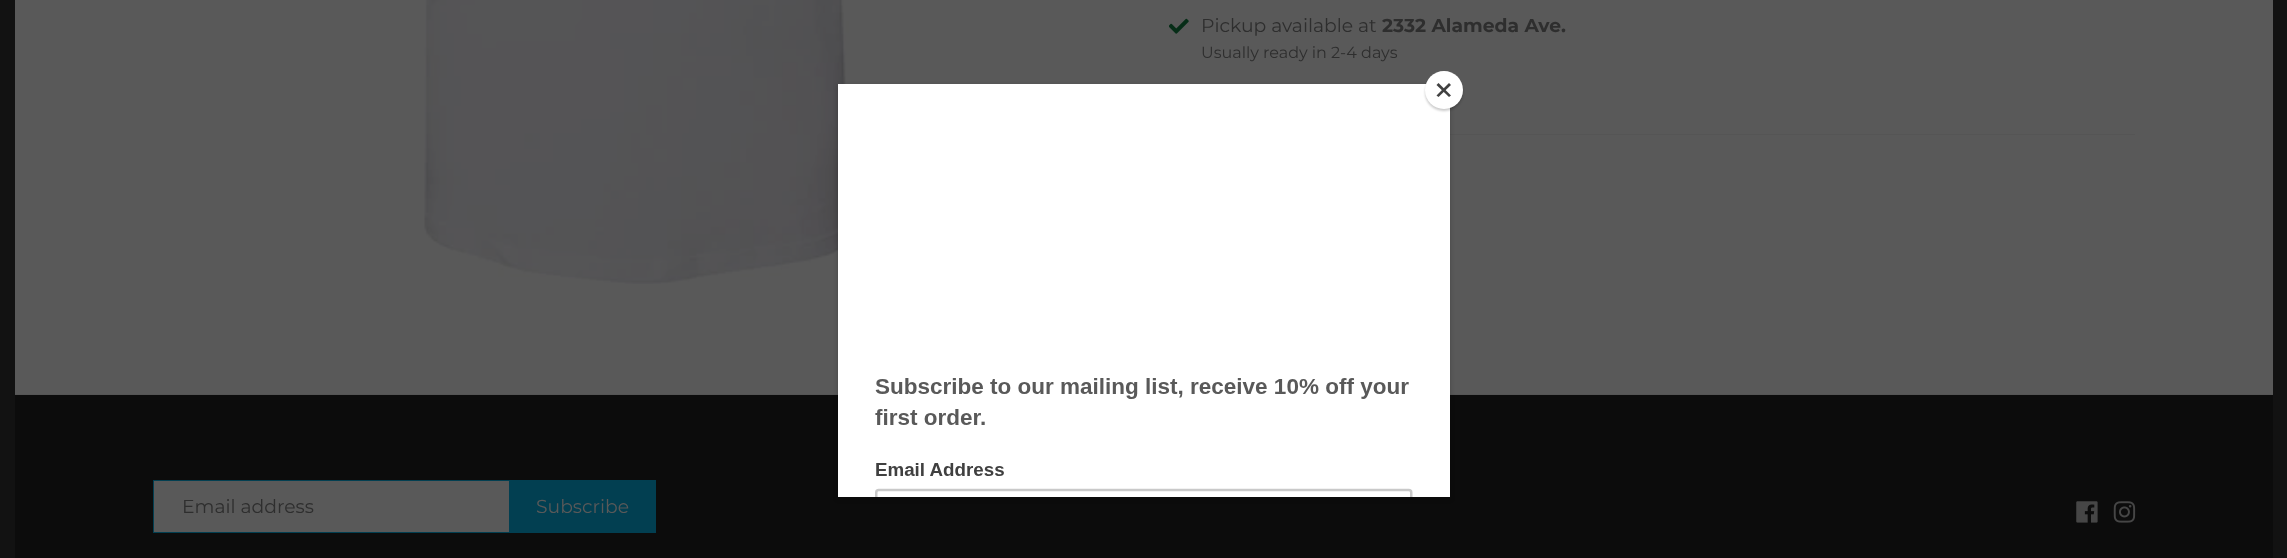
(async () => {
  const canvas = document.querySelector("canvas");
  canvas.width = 2287;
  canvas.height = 558;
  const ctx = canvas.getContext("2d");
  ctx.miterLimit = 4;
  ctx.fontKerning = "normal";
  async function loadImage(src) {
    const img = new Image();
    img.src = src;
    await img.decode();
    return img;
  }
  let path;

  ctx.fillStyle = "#0c0c0c";
  ctx.fillRect(0, 0, 2287, 558);
  ctx.strokeStyle = "#121212";
  ctx.lineWidth = 15;
  ctx.strokeRect(7.5, -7.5, 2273, 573);
  ctx.fillStyle = "#595959";
  ctx.fillRect(15, 0, 2258, 394);
  ctx.drawImage(await loadImage("img/1.png"), 424, 0, 428, 284);
  ctx.fillStyle = "#555555";
  ctx.fillRect(1450, 134, 685, 1);
  ctx.drawImage(await loadImage("img/2.png"), 1169, 18, 20, 16);
  ctx.fillRect(15, 394, 2258, 1);
  ctx.fillStyle = "#595959";
  ctx.fillRect(154, 481, 355, 51);
  ctx.strokeStyle = "#023f51";
  ctx.lineWidth = 1;
  ctx.strokeRect(153.5, 480.5, 501, 52);
  ctx.fillStyle = "#023f51";
  ctx.fillRect(509, 480, 147, 53);
  ctx.drawImage(await loadImage("img/3.png"), 2076, 501, 22, 22);
  ctx.drawImage(await loadImage("img/4.png"), 2113, 501, 23, 22);
  ctx.fillStyle = "rgba(0, 0, 0, 0.2)";
  ctx.filter = "blur(2.5px)";
  ctx.beginPath();
  ctx.rect(838, 86, 612, 413);
  ctx.fill();
  ctx.filter = "none";
  ctx.drawImage(await loadImage("img/5.png"), 838, 84, 612, 413);
  ctx.filter = "blur(1px)";
  ctx.beginPath();
  ctx.roundRect(1425, 74, 38, 37, 18.5);
  ctx.fill();
  ctx.filter = "none";
  ctx.fillStyle = "#ffffff";
  ctx.beginPath();
  ctx.arc(1444, 90, 19, 0, Math.PI * 2);
  ctx.fill();
  ctx.fillStyle = "#414141";
  path = new Path2D("M1449 83L1451 85L1438.5 97L1436.5 95.5Z");
  ctx.fill(path);
  path = new Path2D("M1436.5 85L1438.5 83L1451 95.5L1449 97Z");
  ctx.fill(path);
  ctx.font = "18.75px Montserrat";
  ctx.fillStyle = "#2e2e2e";
  ctx.fillText("Pickup available at", 1201, 32);
  ctx.font = "bold 18.75px Montserrat";
  ctx.fillText("2332 Alameda Ave.", 1382, 32);
  ctx.font = "16px Montserrat";
  ctx.fillText("Usually ready in 2-4 days", 1201, 58);
  ctx.font = "18.75px Montserrat";
  ctx.fillText("Email address", 182, 513);
  ctx.fillStyle = "#595959";
  ctx.fillText("Subscribe", 536, 513);
})();
